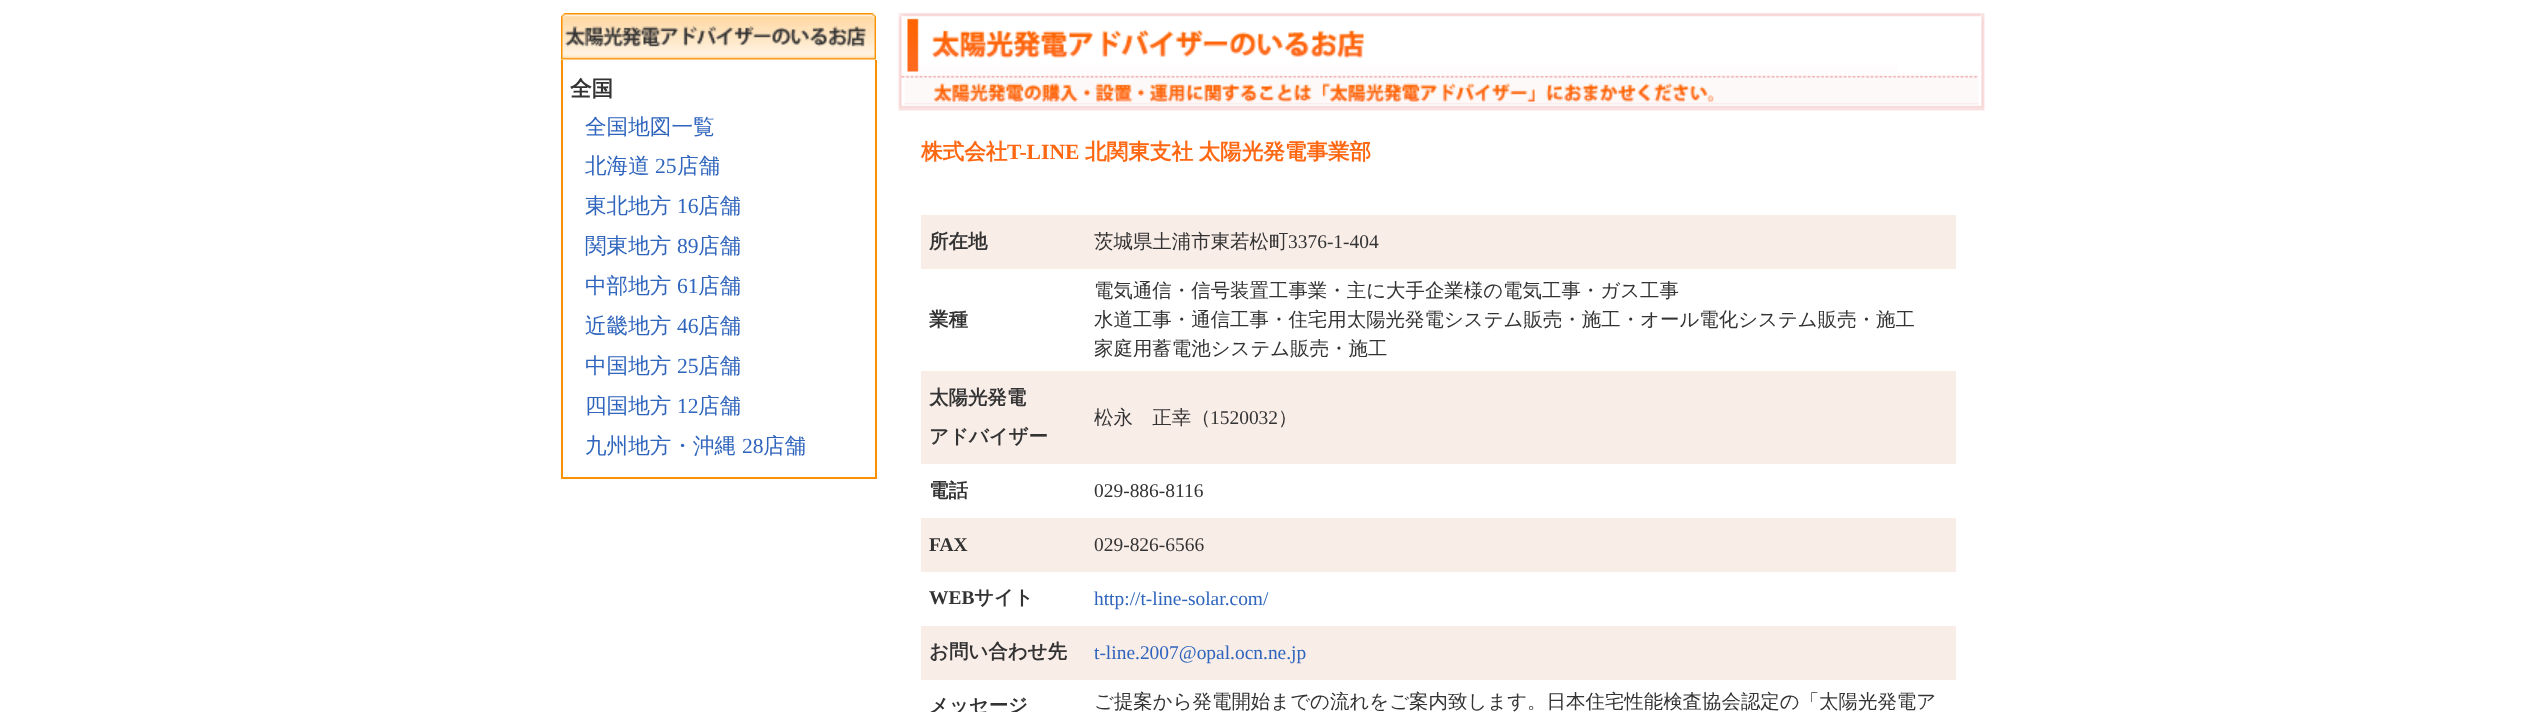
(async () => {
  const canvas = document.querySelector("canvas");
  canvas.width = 2546;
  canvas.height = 712;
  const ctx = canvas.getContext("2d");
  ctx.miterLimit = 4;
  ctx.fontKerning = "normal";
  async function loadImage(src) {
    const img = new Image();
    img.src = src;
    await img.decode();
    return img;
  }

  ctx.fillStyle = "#ffffff";
  ctx.fillRect(0, 0, 2546, 712);
  ctx.drawImage(await loadImage("img/1.png"), 561, 13, 315, 47);
  for (const [x, y, w, h, color] of [
    [875, 60, 2, 419, "#fa9100"],
    [561, 477, 315, 2, "#fa9100"],
    [561, 60, 2, 419, "#fa9100"],
  ]) {
    ctx.fillStyle = color;
    ctx.fillRect(x, y, w, h);
  }
  ctx.drawImage(await loadImage("img/2.png"), 898, 13, 1087, 98);
  for (const [x, y, w, h, color] of [
    [921, 215, 1035, 54, "#f9ede8"],
    [921, 371, 1035, 93, "#f9ede8"],
    [921, 518, 1035, 54, "#f9ede8"],
    [921, 626, 1035, 54, "#f9ede8"],
  ]) {
    ctx.fillStyle = color;
    ctx.fillRect(x, y, w, h);
  }
  ctx.font = "bold 21.6px WenQuanYi Zen Hei";
  ctx.fillStyle = "#333333";
  ctx.fillText("全国", 570, 96);
  ctx.font = "500 21.6px WenQuanYi Zen Hei";
  ctx.fillStyle = "#2f65bd";
  ctx.fillText("全国地図一覧", 585, 134);
  ctx.fillText("北海道", 585, 173);
  ctx.font = "21.6px Liberation Serif";
  ctx.fillText("25", 655, 173);
  ctx.font = "500 21.6px WenQuanYi Zen Hei";
  ctx.fillText("店舗", 677, 173);
  ctx.fillText("東北地方", 585, 213);
  ctx.font = "21.6px Liberation Serif";
  ctx.fillText("16", 677, 213);
  ctx.font = "500 21.6px WenQuanYi Zen Hei";
  ctx.fillText("店舗", 698, 213);
  ctx.fillText("関東地方", 585, 253);
  ctx.font = "21.6px Liberation Serif";
  ctx.fillText("89", 677, 253);
  ctx.font = "500 21.6px WenQuanYi Zen Hei";
  ctx.fillText("店舗", 698, 253);
  ctx.fillText("中部地方", 585, 293);
  ctx.font = "21.6px Liberation Serif";
  ctx.fillText("61", 677, 293);
  ctx.font = "500 21.6px WenQuanYi Zen Hei";
  ctx.fillText("店舗", 698, 293);
  ctx.fillText("近畿地方", 585, 333);
  ctx.font = "21.6px Liberation Serif";
  ctx.fillText("46", 677, 333);
  ctx.font = "500 21.6px WenQuanYi Zen Hei";
  ctx.fillText("店舗", 698, 333);
  ctx.fillText("中国地方", 585, 373);
  ctx.font = "21.6px Liberation Serif";
  ctx.fillText("25", 677, 373);
  ctx.font = "500 21.6px WenQuanYi Zen Hei";
  ctx.fillText("店舗", 698, 373);
  ctx.fillText("四国地方", 585, 413);
  ctx.font = "21.6px Liberation Serif";
  ctx.fillText("12", 677, 413);
  ctx.font = "500 21.6px WenQuanYi Zen Hei";
  ctx.fillText("店舗", 698, 413);
  ctx.fillText("九州地方・沖縄", 585, 453);
  ctx.font = "21.6px Liberation Serif";
  ctx.fillText("28", 742, 453);
  ctx.font = "500 21.6px WenQuanYi Zen Hei";
  ctx.fillText("店舗", 763, 453);
  ctx.font = "bold 21.6px WenQuanYi Zen Hei";
  ctx.fillStyle = "#ff6813";
  ctx.fillText("株式会社", 921, 159);
  ctx.font = "bold 21.6px Liberation Serif";
  ctx.fillText("T-LINE", 1007, 159);
  ctx.wordSpacing = "-1px";
  ctx.font = "bold 21.6px WenQuanYi Zen Hei";
  ctx.fillText("北関東支社 太陽光発電事業部", 1085, 159);
  ctx.wordSpacing = "0px";
  ctx.font = "bold 19.45px WenQuanYi Zen Hei";
  ctx.fillStyle = "#333333";
  ctx.fillText("所在地", 929, 248);
  ctx.font = "500 19.45px WenQuanYi Zen Hei";
  ctx.fillText("茨城県土浦市東若松町", 1094, 248);
  ctx.font = "19.45px Liberation Serif";
  ctx.fillText("3376-1-404", 1288, 248);
  ctx.font = "bold 19.45px WenQuanYi Zen Hei";
  ctx.fillText("業種", 929, 326);
  ctx.font = "500 19.45px WenQuanYi Zen Hei";
  for (const [text, x, y] of [
    ["電気通信・信号装置工事業・主に大手企業様の電気工事・ガス工事", 1094, 297],
    ["水道工事・通信工事・住宅用太陽光発電システム販売・施工・オール電化システム販売・施工", 1094, 326],
    ["家庭用蓄電池システム販売・施工", 1094, 355],
  ]) {
    ctx.fillText(text, x, y);
  }
  ctx.font = "bold 19.45px WenQuanYi Zen Hei";
  ctx.fillText("太陽光発電", 929, 404);
  ctx.fillText("アドバイザー", 929, 443);
  ctx.font = "500 19.45px WenQuanYi Zen Hei";
  ctx.fillText("松永　正幸（", 1094, 424);
  ctx.font = "19.45px Liberation Serif";
  ctx.fillText("1520032", 1210, 424);
  ctx.font = "500 19.45px WenQuanYi Zen Hei";
  ctx.fillText("）", 1278, 424);
  ctx.font = "bold 19.45px WenQuanYi Zen Hei";
  ctx.fillText("電話", 929, 497);
  ctx.font = "19.45px Liberation Serif";
  ctx.fillText("029-886-8116", 1094, 497);
  ctx.font = "bold 19.45px Liberation Serif";
  ctx.fillText("FAX", 929, 551);
  ctx.font = "19.45px Liberation Serif";
  ctx.fillText("029-826-6566", 1094, 551);
  ctx.font = "bold 19.45px Liberation Serif";
  ctx.fillText("WEB", 929, 604);
  ctx.font = "bold 19.45px WenQuanYi Zen Hei";
  ctx.fillText("サイト", 974, 604);
  ctx.font = "19.45px Liberation Serif";
  ctx.fillStyle = "#2f65bd";
  ctx.fillText("http://t-line-solar.com/", 1094, 605);
  ctx.font = "bold 19.45px WenQuanYi Zen Hei";
  ctx.fillStyle = "#333333";
  ctx.fillText("お問い合わせ先", 929, 658);
  ctx.font = "19.45px Liberation Serif";
  ctx.fillStyle = "#2f65bd";
  ctx.fillText("t-line.2007@opal.ocn.ne.jp", 1094, 659);
  ctx.font = "bold 19.45px WenQuanYi Zen Hei";
  ctx.fillStyle = "#333333";
  ctx.fillText("メッセージ", 929, 712);
  ctx.font = "500 19.45px WenQuanYi Zen Hei";
  ctx.fillText("ご提案から発電開始までの流れをご案内致します。日本住宅性能検査協会認定の「太陽光発電ア", 1094, 708);
})();
